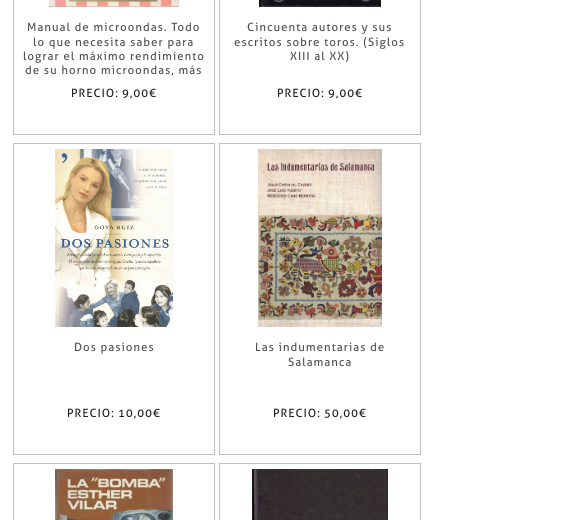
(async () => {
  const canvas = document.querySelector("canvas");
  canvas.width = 575;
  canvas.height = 520;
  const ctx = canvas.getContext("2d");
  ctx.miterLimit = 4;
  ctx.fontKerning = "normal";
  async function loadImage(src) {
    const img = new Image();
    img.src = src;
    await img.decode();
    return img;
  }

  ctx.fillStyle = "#ffffff";
  ctx.fillRect(0, 0, 575, 520);
  ctx.strokeStyle = "#c0c0c0";
  ctx.strokeRect(13.5, -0.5, 201, 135);
  ctx.drawImage(await loadImage("img/1.png"), 49, 0, 130, 7);
  ctx.drawImage(await loadImage("img/2.png"), 27, 22, 172, 10);
  ctx.drawImage(await loadImage("img/3.png"), 33, 37, 160, 12);
  ctx.drawImage(await loadImage("img/4.png"), 23, 51, 181, 12);
  ctx.drawImage(await loadImage("img/5.png"), 25, 65, 176, 11);
  ctx.drawImage(await loadImage("img/6.png"), 72, 88, 46, 10);
  ctx.drawImage(await loadImage("img/7.png"), 122, 88, 34, 11);
  ctx.strokeRect(219.5, -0.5, 201, 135);
  ctx.drawImage(await loadImage("img/8.png"), 259, 0, 122, 7);
  ctx.drawImage(await loadImage("img/9.png"), 247, 22, 144, 12);
  ctx.drawImage(await loadImage("img/10.png"), 234, 37, 170, 12);
  ctx.drawImage(await loadImage("img/11.png"), 290, 51, 59, 11);
  ctx.drawImage(await loadImage("img/6.png"), 278, 88, 46, 10);
  ctx.drawImage(await loadImage("img/7.png"), 328, 88, 34, 11);
  ctx.strokeRect(13.5, 143.5, 201, 311);
  ctx.drawImage(await loadImage("img/12.png"), 55, 149, 118, 178);
  ctx.drawImage(await loadImage("img/13.png"), 75, 342, 79, 12);
  ctx.drawImage(await loadImage("img/6.png"), 68, 408, 46, 10);
  ctx.drawImage(await loadImage("img/14.png"), 119, 408, 41, 11);
  ctx.strokeRect(219.5, 143.5, 201, 311);
  ctx.drawImage(await loadImage("img/15.png"), 258, 149, 124, 178);
  ctx.drawImage(await loadImage("img/16.png"), 256, 342, 128, 10);
  ctx.drawImage(await loadImage("img/17.png"), 288, 357, 63, 10);
  ctx.drawImage(await loadImage("img/6.png"), 274, 408, 46, 10);
  ctx.drawImage(await loadImage("img/18.png"), 324, 408, 42, 11);
  ctx.strokeRect(13.5, 463.5, 201, 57);
  ctx.drawImage(await loadImage("img/19.png"), 55, 469, 118, 51);
  ctx.strokeRect(219.5, 463.5, 201, 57);
  ctx.drawImage(await loadImage("img/20.png"), 252, 469, 136, 51);
})();
